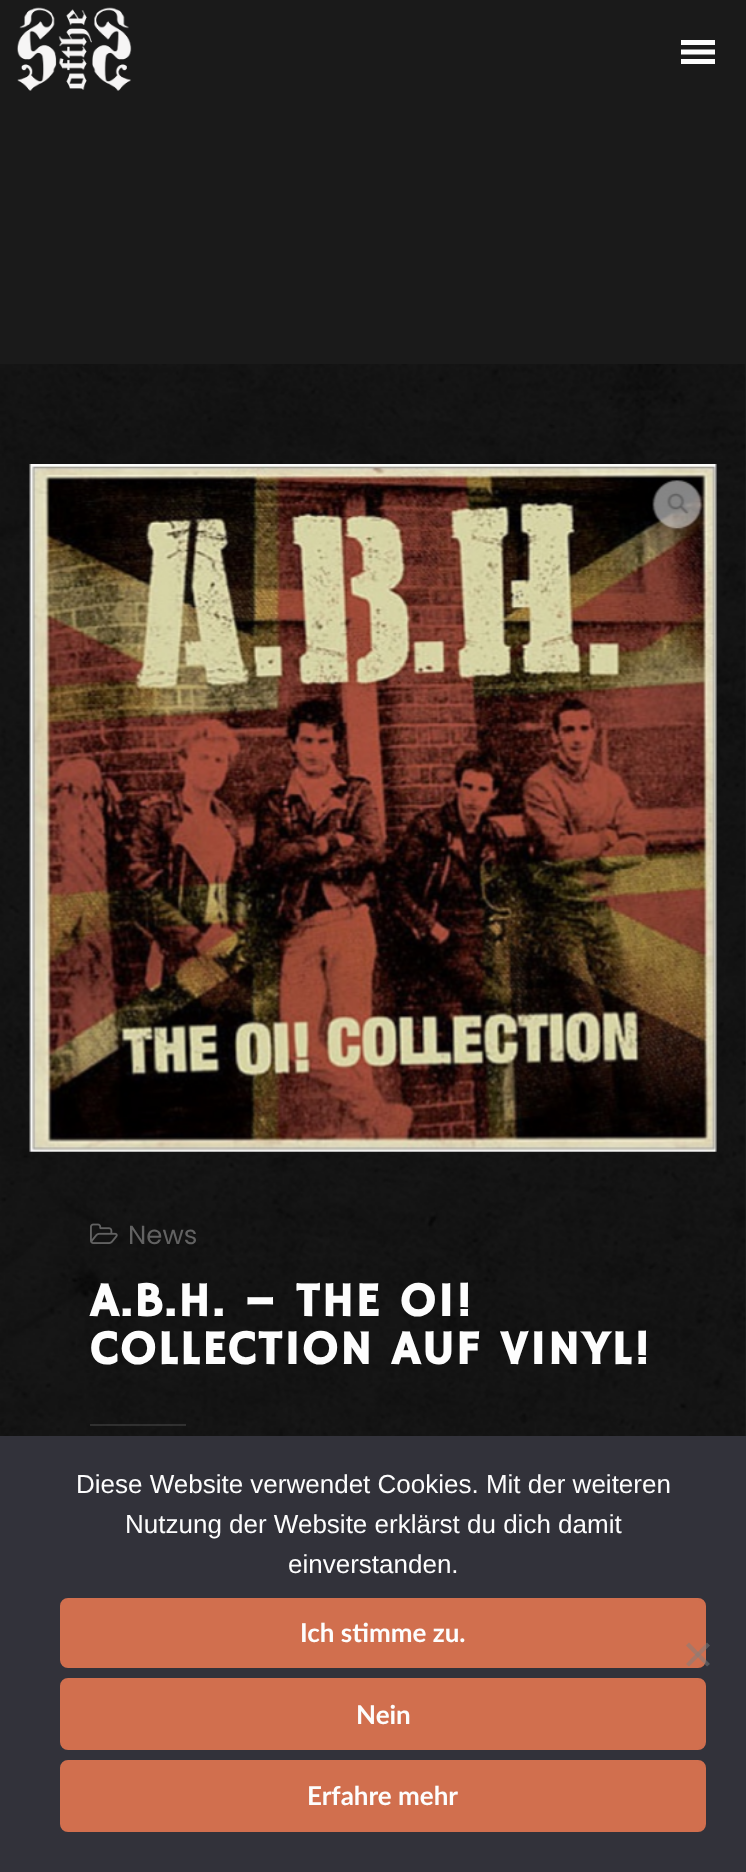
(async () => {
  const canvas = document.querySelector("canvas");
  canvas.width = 746;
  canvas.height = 1872;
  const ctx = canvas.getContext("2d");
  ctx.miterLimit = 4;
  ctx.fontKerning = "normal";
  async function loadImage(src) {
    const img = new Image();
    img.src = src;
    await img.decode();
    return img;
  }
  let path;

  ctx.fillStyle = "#262626";
  ctx.fillRect(0, 0, 746, 1872);
  ctx.drawImage(await loadImage("img/1.png"), 0, 364, 746, 1072);
  ctx.fillStyle = "#1a1a1a";
  ctx.fillRect(0, 0, 746, 364);
  ctx.drawImage(await loadImage("img/2.png"), 17, 7, 115, 84);
  ctx.fillStyle = "#fdfdfd";
  path = new Path2D("M681 64H715V59H681ZM681 40V45H715V40ZM681 54.5H715V49.5H681Z");
  ctx.fill(path);
  ctx.drawImage(await loadImage("img/3.png"), 29, 464, 688, 688);
  ctx.drawImage(await loadImage("img/4.png"), 90, 1223, 28, 21);
  ctx.fillStyle = "rgba(253, 253, 253, 0.12)";
  ctx.fillRect(90, 1424, 96, 2);
  ctx.fillStyle = "#32323a";
  ctx.fillRect(0, 1436, 746, 436);
  ctx.fillStyle = "#d16f4e";
  ctx.beginPath();
  ctx.roundRect(61, 1599, 644, 68, 7);
  ctx.fill();
  ctx.strokeStyle = "#d16f4e";
  ctx.lineWidth = 2;
  ctx.stroke();
  ctx.beginPath();
  ctx.roundRect(61, 1679, 644, 70, 7);
  ctx.fill();
  ctx.stroke();
  ctx.beginPath();
  ctx.roundRect(61, 1761, 644, 70, 7);
  ctx.fill();
  ctx.stroke();
  ctx.fillStyle = "rgba(128, 128, 128, 0.5)";
  path = new Path2D("M707 1642.5L710 1645.5L689 1666.5L686 1664Z");
  ctx.fill(path);
  path = new Path2D("M686 1645.5L689 1642.5L710 1664L707 1666.5Z");
  ctx.fill(path);
  ctx.font = "26px Poppins";
  ctx.fillStyle = "#626262";
  ctx.fillText("News", 128, 1244);
  ctx.letterSpacing = "2px";
  ctx.font = "bold 48px Hammersmith One";
  ctx.fillStyle = "#fdfdfd";
  ctx.fillText("A.B.H. – THE OI!", 90, 1316);
  ctx.fillText("COLLECTION AUF VINYL!", 90, 1364);
  ctx.letterSpacing = "0px";
  ctx.font = "26px Liberation Sans";
  for (const [text, x, y] of [
    ["Diese Website verwendet Cookies. Mit der weiteren", 76, 1493],
    ["Nutzung der Website erklärst du dich damit", 125, 1533],
    ["einverstanden.", 288, 1573],
  ]) {
    ctx.fillText(text, x, y);
  }
  ctx.font = "bold 26px Lato";
  for (const [text, x, y] of [
    ["Ich stimme zu.", 300, 1642],
    ["Nein", 356, 1724],
    ["Erfahre mehr", 307, 1805],
  ]) {
    ctx.fillText(text, x, y);
  }
})();
